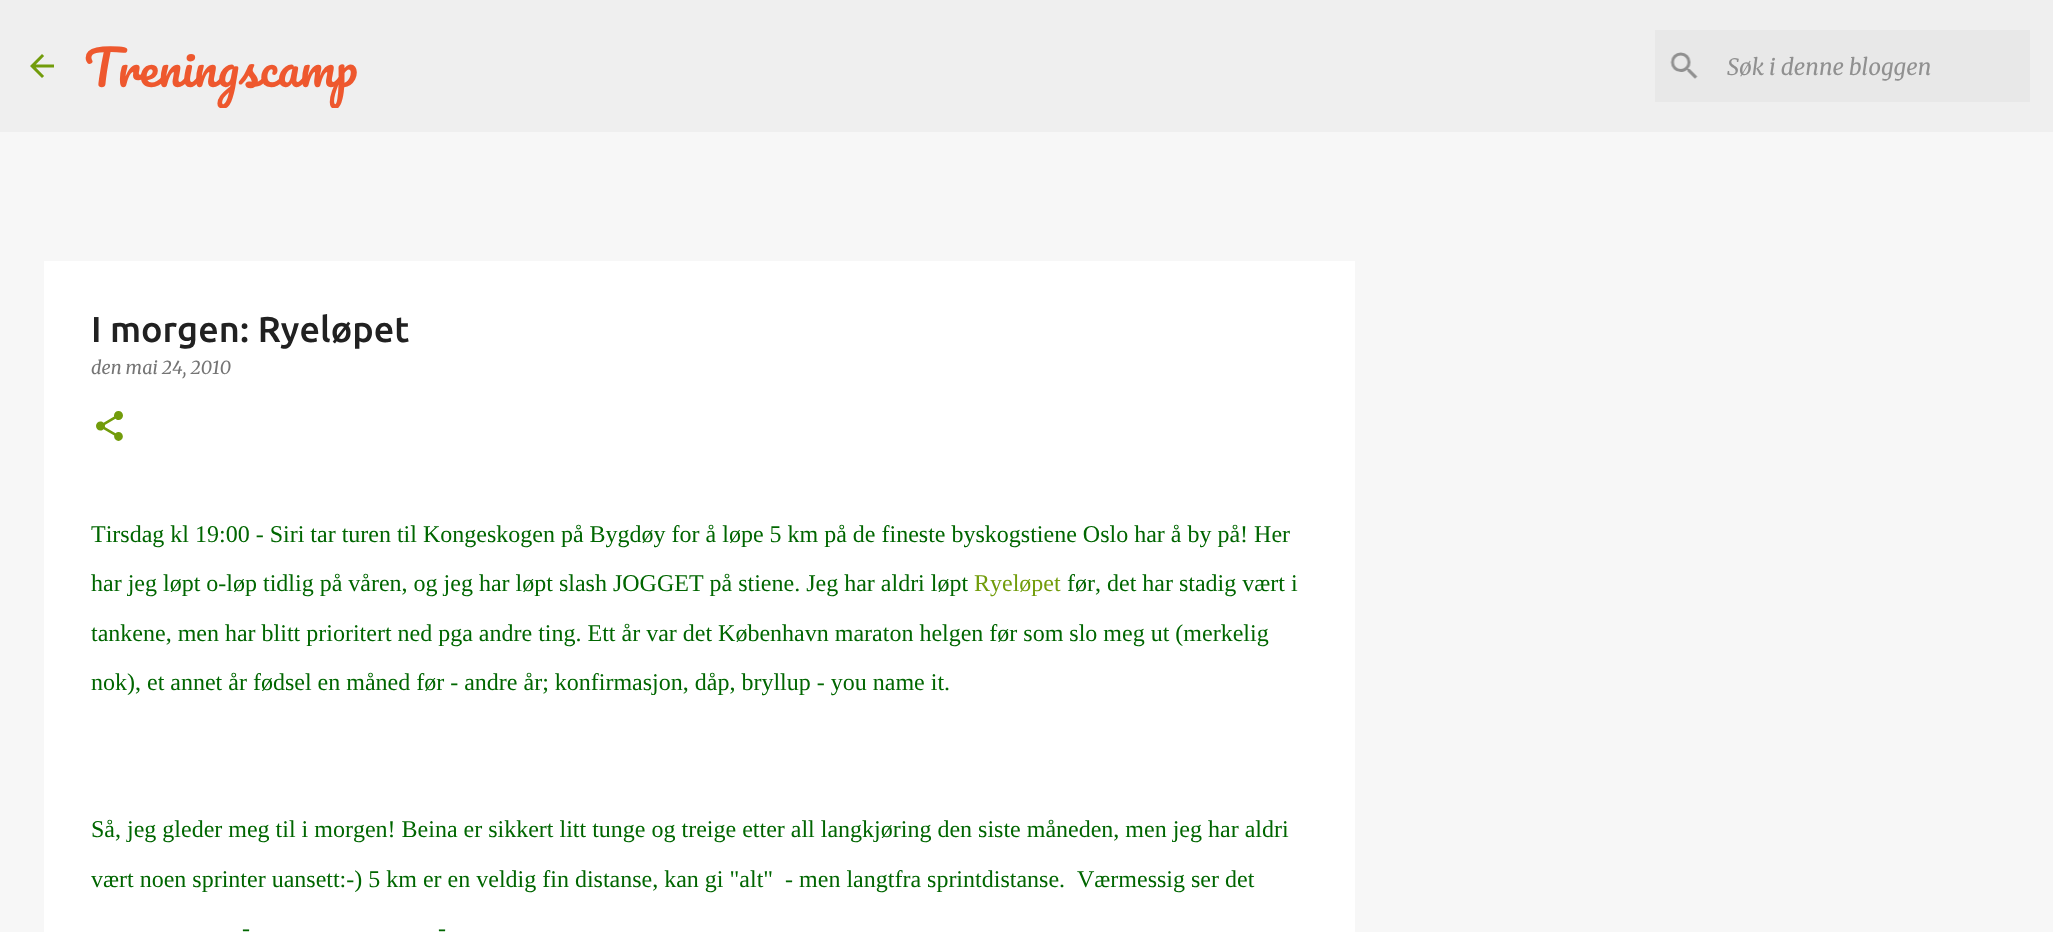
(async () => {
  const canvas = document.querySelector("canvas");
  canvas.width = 2053;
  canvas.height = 932;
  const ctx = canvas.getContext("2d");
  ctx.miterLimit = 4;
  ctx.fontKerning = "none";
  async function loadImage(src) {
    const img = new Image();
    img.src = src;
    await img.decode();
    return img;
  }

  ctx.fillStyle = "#f7f7f7";
  ctx.fillRect(0, 0, 2053, 932);
  ctx.fillStyle = "#efefef";
  ctx.fillRect(0, 0, 2053, 132);
  ctx.drawImage(await loadImage("img/1.png"), 30, 54, 24, 24);
  ctx.fillStyle = "#e8e8e8";
  ctx.fillRect(1655, 30, 375, 72);
  ctx.drawImage(await loadImage("img/2.png"), 1670, 52, 28, 27);
  ctx.fillStyle = "#ffffff";
  ctx.fillRect(44, 261, 1311, 671);
  ctx.drawImage(await loadImage("img/3.png"), 96, 411, 27, 30);
  ctx.save();
  ctx.beginPath();
  ctx.rect(84, 24, 276, 84);
  ctx.clip();
  ctx.font = "48px Pacifico";
  ctx.fillStyle = "#ee582e";
  ctx.fillText("Treningscamp", 84, 87);
  ctx.restore();
  ctx.font = "italic 22.5px Merriweather";
  ctx.fillStyle = "#909090";
  ctx.fillText("Søk i denne bloggen", 1727, 75);
  ctx.font = "500 36px Ubuntu";
  ctx.fillStyle = "#212121";
  ctx.fillText("I morgen: Ryeløpet", 91, 342);
  ctx.font = "italic 18px Merriweather";
  ctx.fillStyle = "#757575";
  ctx.fillText("den mai 24, 2010", 91, 374);
  ctx.font = "24px Liberation Serif";
  ctx.fillStyle = "#006600";
  ctx.fillText("Tirsdag kl 19:00 - Siri tar turen til Kongeskogen på Bygdøy for å løpe 5 km på de fineste byskogstiene Oslo har å by på! Her", 91, 542);
  ctx.fillText("har jeg løpt o-løp tidlig på våren, og jeg har løpt slash JOGGET på stiene. Jeg har aldri løpt", 91, 591);
  ctx.fillStyle = "#729c0b";
  ctx.fillText("Ryeløpet", 974, 591);
  ctx.fillStyle = "#006600";
  for (const [text, x, y] of [
    ["før, det har stadig vært i", 1067, 591],
    ["tankene, men har blitt prioritert ned pga andre ting. Ett år var det København maraton helgen før som slo meg ut (merkelig", 91, 641],
    ["nok), et annet år fødsel en måned før - andre år; konfirmasjon, dåp, bryllup - you name it.", 91, 690],
    ["Så, jeg gleder meg til i morgen! Beina er sikkert litt tunge og treige etter all langkjøring den siste måneden, men jeg har aldri", 91, 837],
    ["vært noen sprinter uansett:-) 5 km er en veldig fin distanse, kan gi \"alt\"  - men langtfra sprintdistanse.  Værmessig ser det", 91, 887],
    ["-", 242, 936],
    ["-", 438, 936],
  ]) {
    ctx.fillText(text, x, y);
  }
})();
